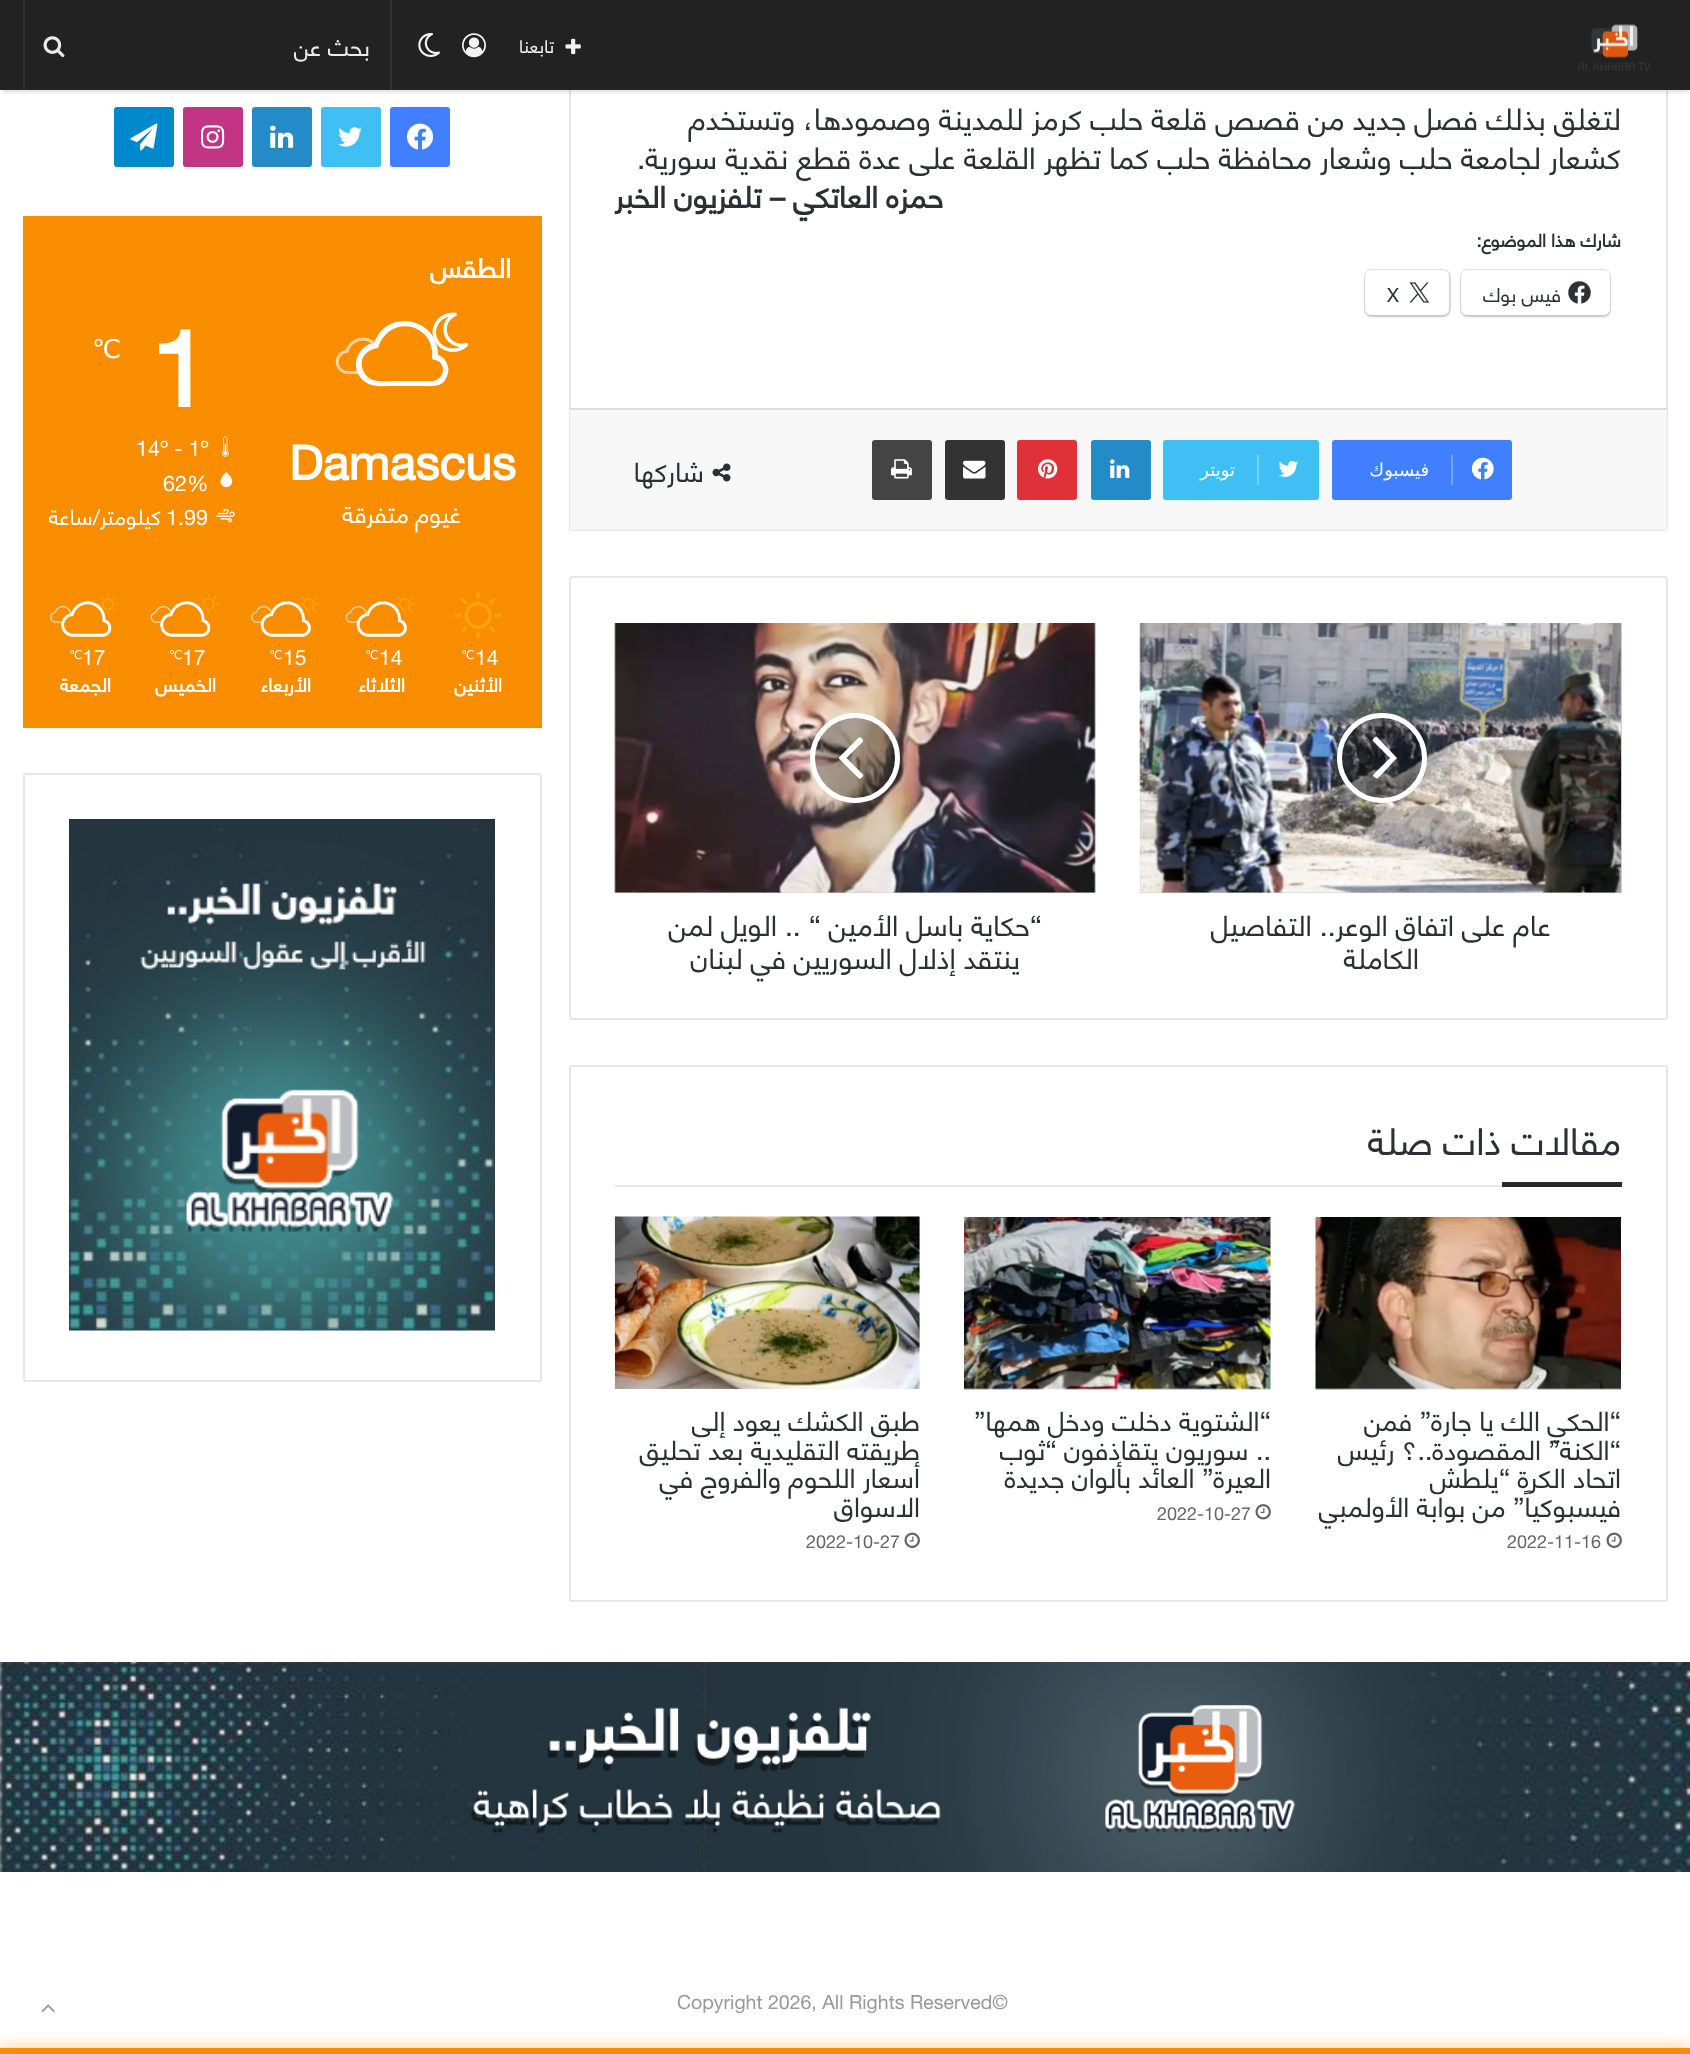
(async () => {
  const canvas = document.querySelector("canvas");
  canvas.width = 1690;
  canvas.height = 2054;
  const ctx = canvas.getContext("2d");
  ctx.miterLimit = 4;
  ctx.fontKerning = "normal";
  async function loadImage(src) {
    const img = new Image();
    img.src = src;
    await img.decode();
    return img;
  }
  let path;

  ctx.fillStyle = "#ffffff";
  ctx.fillRect(0, 0, 1690, 2054);
  ctx.beginPath();
  ctx.roundRect(570, -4, 1097, 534, 2);
  ctx.strokeStyle = "#e6e6e6";
  ctx.lineWidth = 2;
  ctx.stroke();
  ctx.fillStyle = "rgba(0, 0, 0, 0.1)";
  ctx.filter = "blur(1.5px)";
  ctx.beginPath();
  ctx.rect(3, 9, 1685, 84);
  ctx.fill();
  ctx.filter = "none";
  ctx.fillStyle = "#222222";
  ctx.fillRect(0, 0, 1690, 90);
  ctx.drawImage(await loadImage("img/1.png"), 1578, 24, 72, 48);
  ctx.drawImage(await loadImage("img/2.png"), 565, 38, 16, 17);
  ctx.drawImage(await loadImage("img/3.png"), 462, 33, 24, 25);
  ctx.drawImage(await loadImage("img/4.png"), 418, 33, 22, 24);
  ctx.fillStyle = "#313131";
  ctx.fillRect(390, 0, 2, 90);
  ctx.fillRect(23, 0, 2, 90);
  ctx.drawImage(await loadImage("img/5.png"), 43, 36, 22, 22);
  ctx.beginPath();
  ctx.roundRect(1461, 270, 149, 46, 7);
  ctx.strokeStyle = "#e0e0e0";
  ctx.stroke();
  ctx.fillStyle = "rgba(0, 0, 0, 0.12)";
  ctx.filter = "blur(1.5px)";
  ctx.beginPath();
  ctx.roundRect(1461, 272, 149, 45, 6);
  ctx.fill();
  ctx.filter = "none";
  ctx.fillStyle = "#ffffff";
  ctx.beginPath();
  ctx.roundRect(1461, 270, 149, 45, 6);
  ctx.fill();
  ctx.drawImage(await loadImage("img/6.png"), 1568, 281, 23, 23);
  ctx.beginPath();
  ctx.roundRect(1365, 270, 85, 46, 7);
  ctx.stroke();
  ctx.fillStyle = "rgba(0, 0, 0, 0.12)";
  ctx.filter = "blur(1.5px)";
  ctx.beginPath();
  ctx.roundRect(1365, 272, 84, 45, 6);
  ctx.fill();
  ctx.filter = "none";
  ctx.fillStyle = "#ffffff";
  ctx.beginPath();
  ctx.roundRect(1365, 270, 84, 45, 6);
  ctx.fill();
  ctx.drawImage(await loadImage("img/7.png"), 1409, 282, 21, 21);
  ctx.fillStyle = "#f7f7f7";
  ctx.fillRect(570, 410, 1097, 120);
  ctx.fillStyle = "#dedede";
  ctx.fillRect(570, 408, 1097, 2);
  ctx.fillStyle = "#4080ff";
  ctx.beginPath();
  ctx.roundRect(1332, 440, 180, 60, 3);
  ctx.fill();
  ctx.drawImage(await loadImage("img/8.png"), 1471, 457, 23, 23);
  ctx.fillStyle = "#79a6ff";
  ctx.fillRect(1451, 455, 2, 30);
  ctx.fillStyle = "#40bff5";
  ctx.beginPath();
  ctx.roundRect(1163, 440, 156, 60, 3);
  ctx.fill();
  ctx.drawImage(await loadImage("img/9.png"), 1278, 460, 21, 17);
  ctx.fillStyle = "#79d2f8";
  ctx.fillRect(1257, 455, 2, 30);
  ctx.fillStyle = "#238cc8";
  ctx.beginPath();
  ctx.roundRect(1091, 440, 60, 60, 3);
  ctx.fill();
  ctx.drawImage(await loadImage("img/10.png"), 1110, 459, 20, 19);
  ctx.fillStyle = "#e13138";
  ctx.beginPath();
  ctx.roundRect(1017, 440, 60, 60, 3);
  ctx.fill();
  ctx.drawImage(await loadImage("img/11.png"), 1038, 459, 20, 20);
  ctx.fillStyle = "#333333";
  ctx.beginPath();
  ctx.roundRect(945, 440, 60, 60, 3);
  ctx.fill();
  ctx.drawImage(await loadImage("img/12.png"), 963, 460, 23, 19);
  ctx.fillStyle = "#444444";
  ctx.beginPath();
  ctx.roundRect(872, 440, 60, 60, 3);
  ctx.fill();
  ctx.drawImage(await loadImage("img/13.png"), 891, 459, 21, 20);
  ctx.drawImage(await loadImage("img/14.png"), 712, 463, 19, 19);
  ctx.beginPath();
  ctx.roundRect(570, 577, 1097, 442, 2);
  ctx.strokeStyle = "#e6e6e6";
  ctx.stroke();
  ctx.fillStyle = "#cccccc";
  ctx.fillRect(1140, 623, 482, 270);
  ctx.drawImage(await loadImage("img/15.png"), 1139, 623, 482, 270);
  ctx.fillStyle = "rgba(0, 0, 0, 0.3)";
  ctx.beginPath();
  ctx.arc(1382, 758, 42.5, 0, Math.PI * 2);
  ctx.fill();
  ctx.strokeStyle = "#ffffff";
  ctx.lineWidth = 5;
  ctx.stroke();
  ctx.fillStyle = "#ffffff";
  path = new Path2D("M1397 758L1381 775C1378 778 1377 780 1375 777C1374 777 1373 776 1373 775L1390 758L1373 741C1372 740 1375 736 1377 737Z");
  ctx.fill(path);
  ctx.fillStyle = "#cccccc";
  ctx.fillRect(615, 623, 480, 270);
  ctx.drawImage(await loadImage("img/16.png"), 614, 623, 482, 270);
  ctx.fillStyle = "rgba(0, 0, 0, 0.3)";
  ctx.beginPath();
  ctx.arc(855, 758, 42.5, 0, Math.PI * 2);
  ctx.fill();
  ctx.stroke();
  ctx.drawImage(await loadImage("img/17.png"), 838, 737, 26, 42);
  ctx.beginPath();
  ctx.roundRect(570, 1066, 1097, 535, 2);
  ctx.strokeStyle = "#e6e6e6";
  ctx.lineWidth = 2;
  ctx.stroke();
  ctx.fillStyle = "#e6e6e6";
  ctx.fillRect(615, 1185, 887, 2);
  ctx.fillStyle = "#27292d";
  ctx.fillRect(1502, 1182, 120, 5);
  ctx.drawImage(await loadImage("img/18.png"), 1315, 1217, 306, 173);
  ctx.drawImage(await loadImage("img/19.png"), 1606, 1532, 16, 16);
  ctx.drawImage(await loadImage("img/20.png"), 964, 1217, 307, 173);
  ctx.drawImage(await loadImage("img/21.png"), 1255, 1504, 16, 16);
  ctx.drawImage(await loadImage("img/22.png"), 614, 1216, 306, 173);
  ctx.drawImage(await loadImage("img/19.png"), 904, 1532, 16, 16);
  ctx.fillStyle = "#4080ff";
  ctx.beginPath();
  ctx.roundRect(390, 107, 60, 60, 3);
  ctx.fill();
  ctx.drawImage(await loadImage("img/23.png"), 406, 123, 28, 27);
  ctx.fillStyle = "#40bff5";
  ctx.beginPath();
  ctx.roundRect(321, 107, 60, 60, 3);
  ctx.fill();
  ctx.drawImage(await loadImage("img/24.png"), 338, 127, 24, 20);
  ctx.fillStyle = "#238cc8";
  ctx.beginPath();
  ctx.roundRect(252, 107, 60, 60, 3);
  ctx.fill();
  ctx.drawImage(await loadImage("img/25.png"), 270, 125, 24, 23);
  ctx.fillStyle = "#c13584";
  ctx.beginPath();
  ctx.roundRect(183, 107, 60, 60, 3);
  ctx.fill();
  ctx.drawImage(await loadImage("img/26.png"), 201, 125, 24, 24);
  ctx.fillStyle = "#0088cc";
  ctx.beginPath();
  ctx.roundRect(114, 107, 60, 60, 3);
  ctx.fill();
  ctx.drawImage(await loadImage("img/27.png"), 130, 123, 28, 28);
  ctx.fillStyle = "#f98d00";
  ctx.fillRect(23, 216, 519, 512);
  ctx.drawImage(await loadImage("img/28.png"), 432, 312, 37, 40);
  ctx.drawImage(await loadImage("img/30.png"), 335, 337, 40, 38);
  ctx.drawImage(await loadImage("img/29.png"), 357, 335, 80, 40);
  ctx.fillStyle = "#ffffff";
  path = new Path2D("M438 355C442 356 446 360 447 364C449 368 449 372 447 376C443 388 432 386 422 386H396C382 386 366 389 358 374C352 361 360 345 374 343C386 308 438 317 438 355ZM432 381C443 381 447 366 438 361L432 359C436 323 389 313 378 348C371 349 364 353 362 360C361 364 362 369 364 372C370 384 385 381 396 381Z");
  ctx.fill(path);
  ctx.drawImage(await loadImage("img/31.png"), 221, 436, 8, 21);
  ctx.drawImage(await loadImage("img/32.png"), 220, 472, 13, 16);
  ctx.drawImage(await loadImage("img/33.png"), 216, 508, 19, 15);
  ctx.drawImage(await loadImage("img/34.png"), 454, 591, 48, 48);
  ctx.drawImage(await loadImage("img/35.png"), 394, 594, 22, 21);
  ctx.drawImage(await loadImage("img/37.png"), 345, 606, 22, 17);
  ctx.drawImage(await loadImage("img/38.png"), 356, 610, 43, 13);
  ctx.drawImage(await loadImage("img/36.png"), 356, 601, 51, 36);
  ctx.drawImage(await loadImage("img/35.png"), 298, 594, 22, 21);
  ctx.drawImage(await loadImage("img/40.png"), 251, 606, 21, 17);
  ctx.drawImage(await loadImage("img/41.png"), 260, 610, 43, 13);
  ctx.drawImage(await loadImage("img/39.png"), 260, 601, 51, 36);
  ctx.drawImage(await loadImage("img/42.png"), 198, 594, 21, 21);
  ctx.drawImage(await loadImage("img/44.png"), 150, 606, 21, 17);
  ctx.drawImage(await loadImage("img/45.png"), 160, 610, 43, 13);
  ctx.drawImage(await loadImage("img/43.png"), 160, 601, 51, 36);
  ctx.drawImage(await loadImage("img/35.png"), 97, 594, 22, 21);
  ctx.drawImage(await loadImage("img/48.png"), 50, 606, 22, 17);
  ctx.drawImage(await loadImage("img/47.png"), 61, 604, 42, 19);
  ctx.drawImage(await loadImage("img/46.png"), 61, 601, 51, 36);
  ctx.beginPath();
  ctx.roundRect(24, 774, 517, 607, 2);
  ctx.stroke();
  ctx.drawImage(await loadImage("img/49.png"), 69, 819, 426, 512);
  ctx.drawImage(await loadImage("img/50.png"), 0, 1662, 1690, 210);
  ctx.drawImage(await loadImage("img/51.png"), 41, 2004, 14, 9);
  ctx.fillStyle = "rgba(249, 141, 0, 0.7)";
  ctx.filter = "blur(7.5px)";
  ctx.beginPath();
  ctx.rect(0, 2048, 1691, 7);
  ctx.fill();
  ctx.filter = "none";
  ctx.fillStyle = "#f98d00";
  ctx.fillRect(0, 2048, 1690, 6);
  ctx.direction = "rtl";
  ctx.font = "18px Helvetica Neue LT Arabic";
  ctx.fillStyle = "#f4f4f4";
  ctx.fillText("تابعنا", 554, 53);
  ctx.font = "24px Helvetica Neue LT Arabic";
  ctx.fillStyle = "#ebebeb";
  ctx.fillText("بحث عن", 370, 56);
  ctx.font = "30px Helvetica Neue LT Arabic";
  ctx.fillStyle = "#2c2f34";
  ctx.fillText("لتغلق بذلك فصل جديد من قصص قلعة حلب كرمز للمدينة وصمودها، وتستخدم", 1621, 130);
  ctx.fillText("كشعار لجامعة حلب وشعار محافظة حلب كما تظهر القلعة على عدة قطع نقدية سورية.", 1621, 169);
  ctx.font = "bold 30px Helvetica Neue LT Arabic";
  ctx.fillText("حمزه العاتكي – تلفزيون الخبر", 943, 208);
  ctx.font = "bold 18px Helvetica Neue LT Arabic";
  ctx.fillText("شارك هذا الموضوع:", 1621, 247);
  ctx.font = "19.5px Helvetica Neue LT Arabic";
  ctx.fillText("فيس بوك", 1561, 302);
  ctx.direction = "ltr";
  ctx.fillText("X", 1387, 302);
  ctx.direction = "rtl";
  ctx.font = "18px DejaVu Sans";
  ctx.fillStyle = "#ffffff";
  ctx.fillText("فيسبوك", 1429, 476);
  ctx.fillText("تويتر", 1235, 476);
  ctx.font = "27px Helvetica Neue LT Arabic";
  ctx.fillStyle = "#2c2f34";
  ctx.fillText("شاركها", 704, 482);
  ctx.font = "28.5px Helvetica Neue LT Arabic";
  for (const [text, x, y] of [
    ["عام على اتفاق الوعر.. التفاصيل", 1551, 936],
    ["الكاملة", 1419, 969],
    ["“حكاية باسل الأمين “ .. الويل لمن", 1042, 936],
    ["ينتقد إذلال السوريين في لبنان", 1020, 969],
  ]) {
    ctx.fillText(text, x, y);
  }
  ctx.font = "37.5px Helvetica Neue LT Arabic";
  ctx.fillText("مقالات ذات صلة", 1621, 1155);
  ctx.font = "27px Helvetica Neue LT Arabic";
  for (const [text, x, y] of [
    ["“الحكي الك يا جارة” فمن", 1621, 1431],
    ["“الكنة” المقصودة..؟ رئيس", 1621, 1460],
    ["اتحاد الكرة “يلطش", 1621, 1488],
    ["فيسبوكياً” من بوابة الأولمبي", 1621, 1517],
  ]) {
    ctx.fillText(text, x, y);
  }
  ctx.direction = "ltr";
  ctx.font = "18px Helvetica Neue LT Arabic";
  ctx.fillStyle = "#666666";
  ctx.fillText("2022-11-16", 1507, 1548);
  ctx.direction = "rtl";
  ctx.font = "27px Helvetica Neue LT Arabic";
  ctx.fillStyle = "#2c2f34";
  for (const [text, x, y] of [
    ["“الشتوية دخلت ودخل همها”", 1271, 1431],
    [".. سوريون يتقاذفون “ثوب", 1271, 1460],
    ["العيرة” العائد بألوان جديدة", 1271, 1488],
  ]) {
    ctx.fillText(text, x, y);
  }
  ctx.direction = "ltr";
  ctx.font = "18px Helvetica Neue LT Arabic";
  ctx.fillStyle = "#666666";
  ctx.fillText("2022-10-27", 1157, 1520);
  ctx.direction = "rtl";
  ctx.font = "27px Helvetica Neue LT Arabic";
  ctx.fillStyle = "#2c2f34";
  for (const [text, x, y] of [
    ["طبق الكشك يعود إلى", 920, 1431],
    ["طريقته التقليدية بعد تحليق", 920, 1460],
    ["أسعار اللحوم والفروج في", 920, 1488],
    ["الاسواق", 920, 1517],
  ]) {
    ctx.fillText(text, x, y);
  }
  ctx.direction = "ltr";
  ctx.font = "18px Helvetica Neue LT Arabic";
  ctx.fillStyle = "#666666";
  ctx.fillText("2022-10-27", 806, 1548);
  ctx.direction = "rtl";
  ctx.font = "bold 27px Helvetica Neue LT Arabic";
  ctx.fillStyle = "#ffffff";
  ctx.fillText("الطقس", 511, 278);
  ctx.direction = "ltr";
  ctx.font = "bold 48px Helvetica Neue LT Arabic";
  ctx.fillText("Damascus", 289, 480);
  ctx.direction = "rtl";
  ctx.font = "24px Helvetica Neue LT Arabic";
  ctx.fillText("غيوم متفرقة", 461, 523);
  ctx.direction = "ltr";
  ctx.font = "bold 105px Helvetica Neue LT Arabic";
  ctx.fillText("1", 150, 407);
  ctx.font = "26px DejaVu Sans";
  ctx.fillText("℃", 92, 358);
  ctx.font = "21.5px Helvetica Neue LT Arabic";
  for (const [text, x, y] of [
    ["14º - 1º", 136, 456],
    ["62%", 163, 491],
    ["1.99", 166, 525],
  ]) {
    ctx.fillText(text, x, y);
  }
  ctx.direction = "rtl";
  ctx.fillText("كيلومتر/ساعة", 161, 525);
  ctx.direction = "ltr";
  ctx.font = "21px Helvetica Neue LT Arabic";
  ctx.fillText("14", 475, 665);
  ctx.font = "12px DejaVu Sans";
  ctx.fillText("℃", 461, 659);
  ctx.direction = "rtl";
  ctx.font = "bold 19px Helvetica Neue LT Arabic";
  ctx.fillText("الأثنين", 502, 692);
  ctx.direction = "ltr";
  ctx.font = "21px Helvetica Neue LT Arabic";
  ctx.fillText("14", 379, 665);
  ctx.font = "12px DejaVu Sans";
  ctx.fillText("℃", 365, 659);
  ctx.direction = "rtl";
  ctx.font = "bold 19px Helvetica Neue LT Arabic";
  ctx.fillText("الثلاثاء", 405, 692);
  ctx.direction = "ltr";
  ctx.font = "21px Helvetica Neue LT Arabic";
  ctx.fillText("15", 283, 665);
  ctx.font = "12px DejaVu Sans";
  ctx.fillText("℃", 269, 659);
  ctx.direction = "rtl";
  ctx.font = "bold 19px Helvetica Neue LT Arabic";
  ctx.fillText("الأربعاء", 311, 692);
  ctx.direction = "ltr";
  ctx.font = "21px Helvetica Neue LT Arabic";
  ctx.fillText("17", 182, 665);
  ctx.font = "12px DejaVu Sans";
  ctx.fillText("℃", 169, 659);
  ctx.direction = "rtl";
  ctx.font = "bold 19px Helvetica Neue LT Arabic";
  ctx.fillText("الخميس", 216, 692);
  ctx.direction = "ltr";
  ctx.font = "21px Helvetica Neue LT Arabic";
  ctx.fillText("17", 82, 665);
  ctx.font = "12px DejaVu Sans";
  ctx.fillText("℃", 69, 659);
  ctx.direction = "rtl";
  ctx.font = "bold 19px Helvetica Neue LT Arabic";
  ctx.fillText("الجمعة", 111, 692);
  ctx.direction = "ltr";
  ctx.font = "19.5px Helvetica Neue LT Arabic";
  ctx.fillStyle = "#999999";
  ctx.fillText("Copyright 2026, All Rights Reserved©", 677, 2009);
})();
